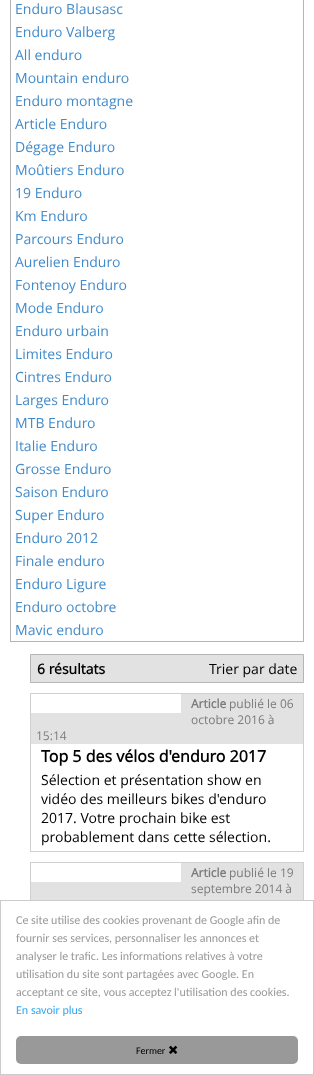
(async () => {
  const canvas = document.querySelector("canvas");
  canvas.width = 314;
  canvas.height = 1075;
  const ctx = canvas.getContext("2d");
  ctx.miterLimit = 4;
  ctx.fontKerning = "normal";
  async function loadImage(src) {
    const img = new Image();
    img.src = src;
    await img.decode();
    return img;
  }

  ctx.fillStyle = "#ffffff";
  ctx.fillRect(0, 0, 314, 1075);
  ctx.strokeStyle = "#b5b5b5";
  ctx.strokeRect(10.5, -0.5, 293, 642);
  ctx.fillStyle = "#e2e2e2";
  ctx.beginPath();
  ctx.rect(30.5, 654.5, 273, 28);
  ctx.fill();
  ctx.stroke();
  ctx.strokeStyle = "#d0d0d0";
  ctx.strokeRect(30.5, 693.5, 273, 158);
  ctx.fillRect(31, 694, 272, 50);
  ctx.fillStyle = "#ffffff";
  ctx.fillRect(31, 694, 150, 19);
  ctx.strokeRect(30.5, 862.5, 273, 175);
  for (const [x, y, w, h, color] of [
    [31, 863, 272, 37, "#e2e2e2"],
    [31, 863, 150, 19, "#ffffff"],
    [30, 901, 274, 137, "#ffffff"],
  ]) {
    ctx.fillStyle = color;
    ctx.fillRect(x, y, w, h);
  }
  ctx.strokeStyle = "#cccccc";
  ctx.strokeRect(0.5, 900.5, 313, 174);
  ctx.fillStyle = "#999999";
  ctx.beginPath();
  ctx.roundRect(16, 1036, 282, 28, 5);
  ctx.fill();
  ctx.drawImage(await loadImage("img/1.png"), 169, 1045, 9, 9);
  ctx.font = "14px Open Sans";
  ctx.fillStyle = "#428bca";
  for (const [text, x, y] of [
    ["Enduro Blausasc", 15, 14],
    ["Enduro Valberg", 15, 37],
    ["All enduro", 15, 60],
    ["Mountain enduro", 15, 83],
    ["Enduro montagne", 15, 106],
    ["Article Enduro", 15, 129],
    ["Dégage Enduro", 15, 152],
    ["Moûtiers Enduro", 15, 175],
    ["19 Enduro", 15, 198],
    ["Km Enduro", 15, 221],
    ["Parcours Enduro", 15, 244],
    ["Aurelien Enduro", 15, 267],
    ["Fontenoy Enduro", 15, 290],
    ["Mode Enduro", 15, 313],
    ["Enduro urbain", 15, 336],
    ["Limites Enduro", 15, 359],
    ["Cintres Enduro", 15, 382],
    ["Larges Enduro", 15, 405],
    ["MTB Enduro", 15, 428],
    ["Italie Enduro", 15, 451],
    ["Grosse Enduro", 15, 474],
    ["Saison Enduro", 15, 497],
    ["Super Enduro", 15, 520],
    ["Enduro 2012", 15, 543],
    ["Finale enduro", 15, 566],
    ["Enduro Ligure", 15, 589],
    ["Enduro octobre", 15, 612],
    ["Mavic enduro", 15, 635],
  ]) {
    ctx.fillText(text, x, y);
  }
  ctx.font = "bold 14px Open Sans";
  ctx.fillStyle = "#000000";
  ctx.fillText("6 résultats", 37, 674);
  ctx.font = "14px Open Sans";
  ctx.fillText("Trier par date", 209, 674);
  ctx.font = "bold 12px Open Sans";
  ctx.fillStyle = "#7b7b7b";
  ctx.fillText("Article", 191, 708);
  ctx.font = "12px Open Sans";
  for (const [text, x, y] of [
    ["publié le 06", 229, 708],
    ["octobre 2016 à", 191, 724],
    ["15:14", 36, 740],
  ]) {
    ctx.fillText(text, x, y);
  }
  ctx.font = "bold 16px Open Sans";
  ctx.fillStyle = "#000000";
  ctx.fillText("Top 5 des vélos d'enduro 2017", 41, 762);
  ctx.font = "14px Open Sans";
  for (const [text, x, y] of [
    ["Sélection et présentation show en", 41, 785],
    ["vidéo des meilleurs bikes d'enduro", 41, 804],
    ["2017. Votre prochain bike est", 41, 823],
    ["probablement dans cette sélection.", 41, 842],
  ]) {
    ctx.fillText(text, x, y);
  }
  ctx.font = "bold 12px Open Sans";
  ctx.fillStyle = "#7b7b7b";
  ctx.fillText("Article", 191, 877);
  ctx.font = "12px Open Sans";
  ctx.fillText("publié le 19", 229, 877);
  ctx.fillText("septembre 2014 à", 191, 893);
  ctx.font = "12px Carlito";
  ctx.fillStyle = "#999999";
  for (const [text, x, y] of [
    ["Ce site utilise des cookies provenant de Google afin de", 16, 924],
    ["fournir ses services, personnaliser les annonces et", 16, 942],
    ["analyser le trafic. Les informations relatives à votre", 16, 960],
    ["utilisation du site sont partagées avec Google. En", 16, 978],
    ["acceptant ce site, vous acceptez l'utilisation des cookies.", 16, 996],
  ]) {
    ctx.fillText(text, x, y);
  }
  ctx.fillStyle = "#31a8f0";
  ctx.fillText("En savoir plus", 16, 1014);
  ctx.font = "10px Carlito";
  ctx.fillStyle = "#000000";
  ctx.fillText("Fermer", 136, 1054);
})();
